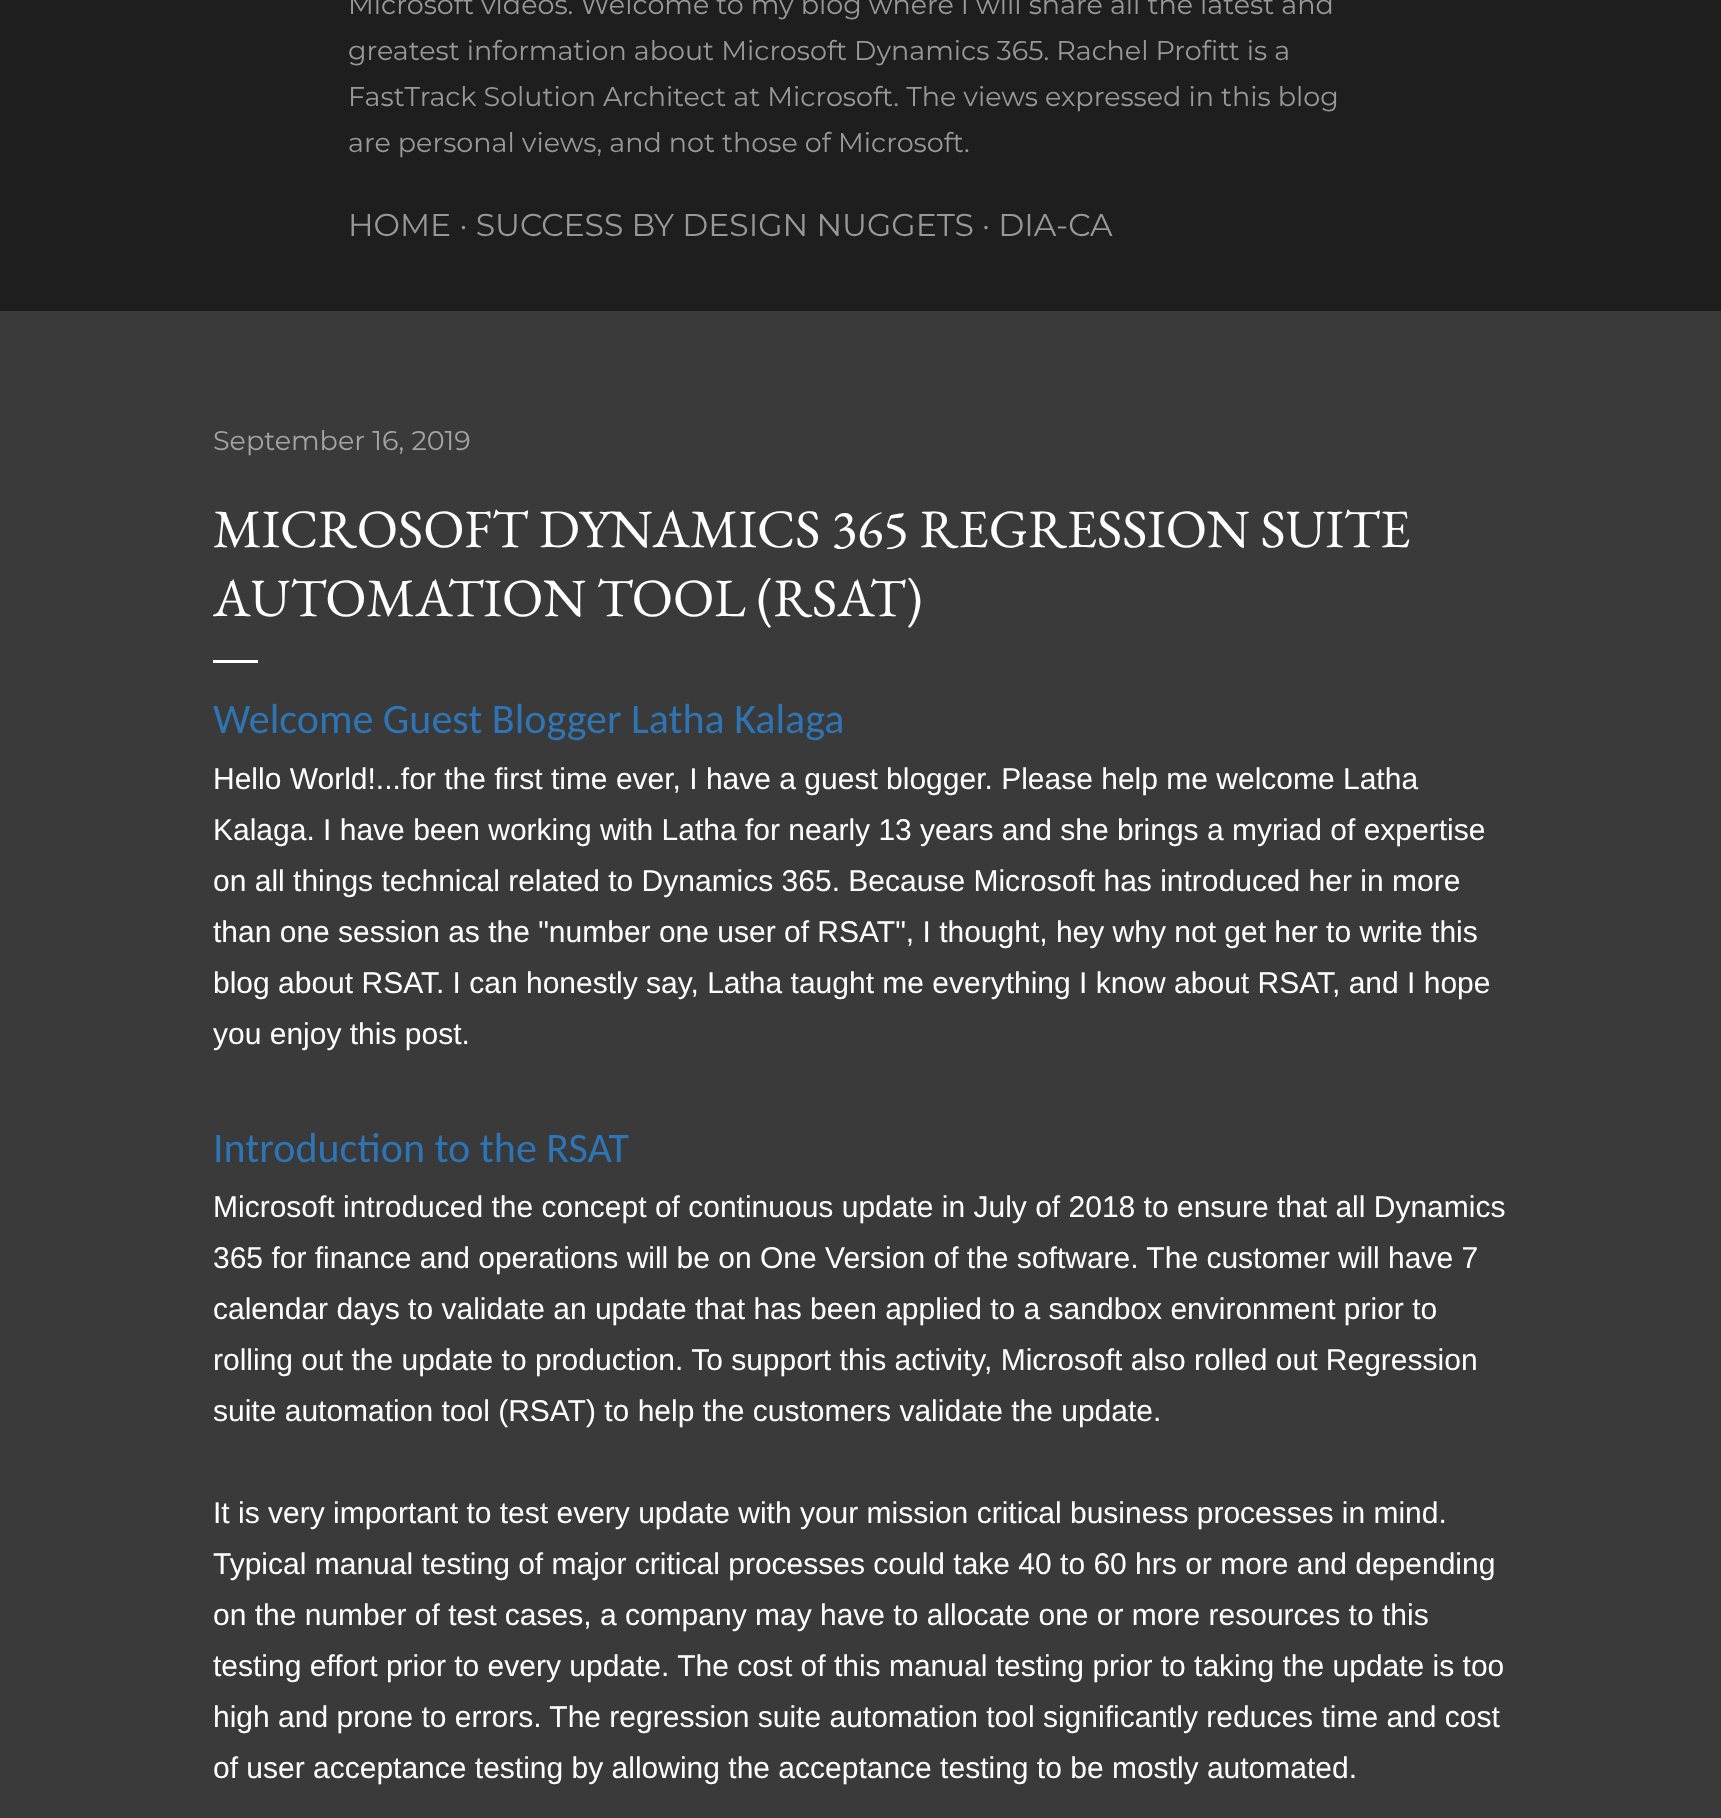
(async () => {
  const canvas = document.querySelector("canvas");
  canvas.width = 1721;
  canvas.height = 1818;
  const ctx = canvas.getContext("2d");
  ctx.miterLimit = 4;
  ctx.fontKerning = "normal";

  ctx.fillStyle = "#3a3a3a";
  ctx.fillRect(0, 0, 1721, 1818);
  ctx.fillStyle = "#1e1e1e";
  ctx.fillRect(0, 0, 1721, 311);
  ctx.font = "27px Montserrat";
  ctx.fillStyle = "#989898";
  for (const [text, x, y] of [
    ["Microsoft videos. Welcome to my blog where I will share all the latest and", 348, 14],
    ["greatest information about Microsoft Dynamics 365. Rachel Profitt is a", 348, 60],
    ["FastTrack Solution Architect at Microsoft. The views expressed in this blog", 348, 106],
    ["are personal views, and not those of Microsoft.", 348, 152],
  ]) {
    ctx.fillText(text, x, y);
  }
  ctx.font = "31.5px Montserrat";
  ctx.fillText("HOME · SUCCESS BY DESIGN NUGGETS · DIA-CA", 348, 236);
  ctx.font = "27px Montserrat";
  ctx.fillStyle = "#a4a4a4";
  ctx.fillText("September 16, 2019", 213, 450);
  ctx.font = "54px EB Garamond";
  ctx.fillStyle = "#ffffff";
  ctx.fillText("MICROSOFT DYNAMICS 365 REGRESSION SUITE", 213, 547);
  ctx.fillText("AUTOMATION TOOL (RSAT)", 213, 616);
  ctx.font = "45px Liberation Sans";
  ctx.fillText("—", 213, 673);
  ctx.font = "42px Carlito";
  ctx.fillStyle = "#2e75b5";
  ctx.fillText("Welcome Guest Blogger Latha Kalaga", 213, 733);
  ctx.font = "30px Liberation Sans";
  ctx.fillStyle = "#ffffff";
  for (const [text, x, y] of [
    ["Hello World!...for the first time ever, I have a guest blogger. Please help me welcome Latha", 213, 789],
    ["Kalaga. I have been working with Latha for nearly 13 years and she brings a myriad of expertise", 213, 840],
    ["on all things technical related to Dynamics 365. Because Microsoft has introduced her in more", 213, 891],
    ["than one session as the \"number one user of RSAT\", I thought, hey why not get her to write this", 213, 942],
    ["blog about RSAT. I can honestly say, Latha taught me everything I know about RSAT, and I hope", 213, 993],
    ["you enjoy this post.", 213, 1044],
  ]) {
    ctx.fillText(text, x, y);
  }
  ctx.font = "42px Carlito";
  ctx.fillStyle = "#2e75b5";
  ctx.fillText("Introduction to the RSAT", 213, 1162);
  ctx.font = "30px Liberation Sans";
  ctx.fillStyle = "#ffffff";
  for (const [text, x, y] of [
    ["Microsoft introduced the concept of continuous update in July of 2018 to ensure that all Dynamics", 213, 1217],
    ["365 for finance and operations will be on One Version of the software. The customer will have 7", 213, 1268],
    ["calendar days to validate an update that has been applied to a sandbox environment prior to", 213, 1319],
    ["rolling out the update to production. To support this activity, Microsoft also rolled out Regression", 213, 1370],
    ["suite automation tool (RSAT) to help the customers validate the update.", 213, 1421],
    ["It is very important to test every update with your mission critical business processes in mind.", 213, 1523],
    ["Typical manual testing of major critical processes could take 40 to 60 hrs or more and depending", 213, 1574],
    ["on the number of test cases, a company may have to allocate one or more resources to this", 213, 1625],
    ["testing effort prior to every update. The cost of this manual testing prior to taking the update is too", 213, 1676],
    ["high and prone to errors. The regression suite automation tool significantly reduces time and cost", 213, 1727],
    ["of user acceptance testing by allowing the acceptance testing to be mostly automated.", 213, 1778],
  ]) {
    ctx.fillText(text, x, y);
  }
})();
